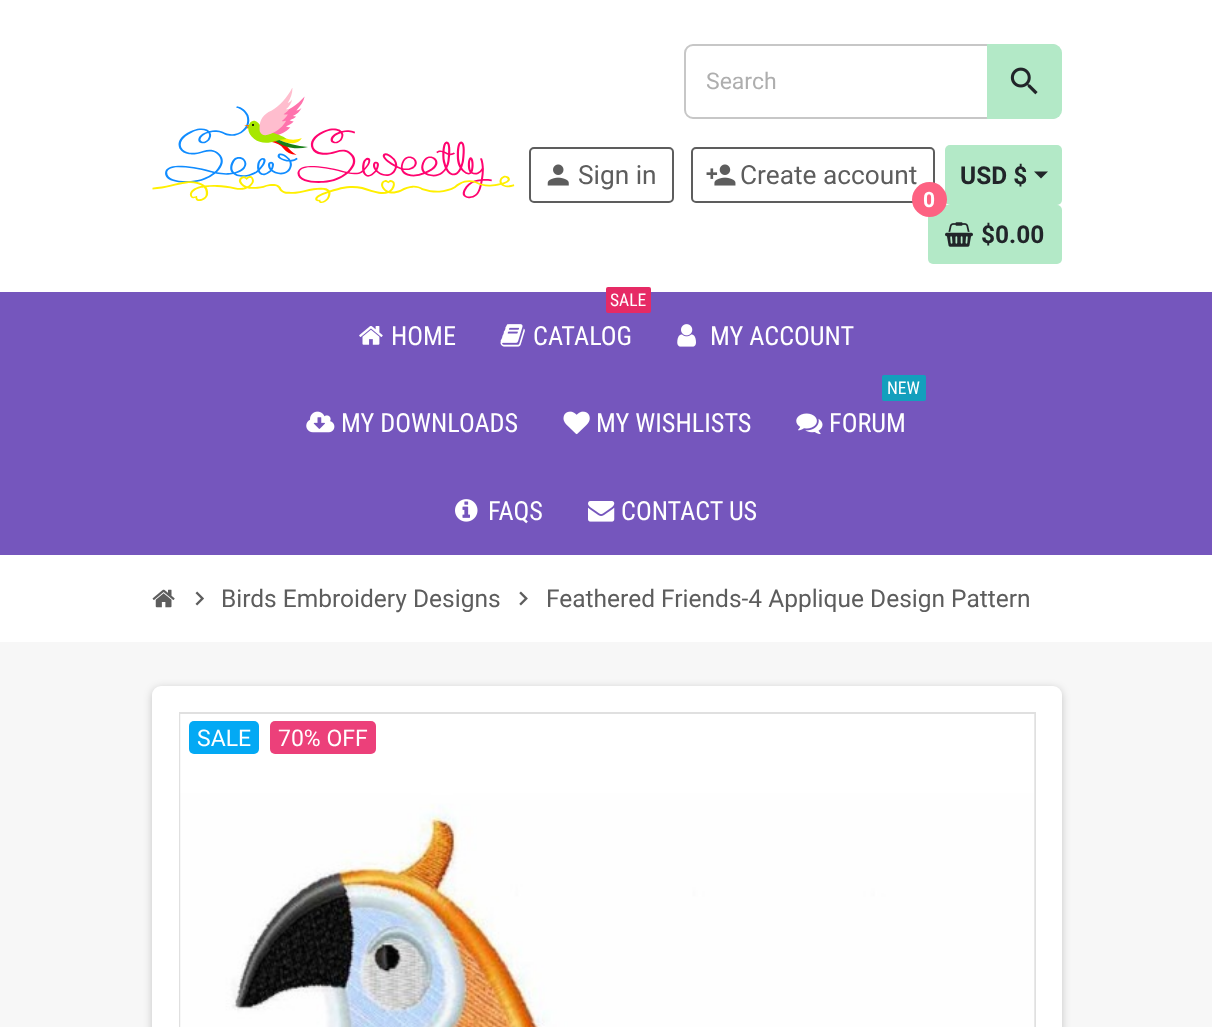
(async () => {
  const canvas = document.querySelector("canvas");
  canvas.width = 1212;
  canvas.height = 1027;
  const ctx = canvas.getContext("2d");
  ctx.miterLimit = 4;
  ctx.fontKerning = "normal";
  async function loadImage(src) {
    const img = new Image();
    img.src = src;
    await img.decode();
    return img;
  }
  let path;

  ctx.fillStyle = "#ffffff";
  ctx.fillRect(0, 0, 1212, 1027);
  ctx.drawImage(await loadImage("img/1.png"), 152, 88, 363, 115);
  ctx.beginPath();
  ctx.roundRect(685, 45, 375, 73, 8);
  ctx.strokeStyle = "#c7c7c7";
  ctx.lineWidth = 2;
  ctx.stroke();
  ctx.fillStyle = "#b3e9c7";
  ctx.beginPath();
  ctx.roundRect(987, 44, 75, 75, [0, 9, 9, 0]);
  ctx.fill();
  ctx.drawImage(await loadImage("img/2.png"), 1010, 67, 28, 28);
  ctx.beginPath();
  ctx.roundRect(530, 148, 143, 54, 4);
  ctx.strokeStyle = "#5d5d5d";
  ctx.stroke();
  ctx.drawImage(await loadImage("img/3.png"), 547, 164, 22, 22);
  ctx.beginPath();
  ctx.roundRect(692, 148, 242, 54, 4);
  ctx.stroke();
  ctx.drawImage(await loadImage("img/4.png"), 706, 164, 30, 22);
  ctx.beginPath();
  ctx.roundRect(945, 145, 117, 60, 5);
  ctx.fill();
  ctx.fillStyle = "#212529";
  path = new Path2D("M1034 171.5H1048L1041 178.5Z");
  ctx.fill(path);
  ctx.fillStyle = "#b3e9c7";
  ctx.beginPath();
  ctx.roundRect(928, 205, 134, 59, 5);
  ctx.fill();
  ctx.drawImage(await loadImage("img/5.png"), 945, 222, 28, 25);
  ctx.fillStyle = "#7556bd";
  ctx.fillRect(0, 292, 1212, 263);
  ctx.drawImage(await loadImage("img/6.png"), 359, 326, 24, 19);
  ctx.fillStyle = "#e62a65";
  ctx.beginPath();
  ctx.roundRect(606, 287, 45, 26, 2);
  ctx.fill();
  ctx.drawImage(await loadImage("img/7.png"), 500, 324, 25, 23);
  ctx.drawImage(await loadImage("img/8.png"), 677, 324, 19, 23);
  ctx.drawImage(await loadImage("img/9.png"), 306, 411, 29, 22);
  ctx.drawImage(await loadImage("img/10.png"), 563, 411, 27, 24);
  ctx.fillStyle = "#139fbd";
  ctx.beginPath();
  ctx.roundRect(882, 375, 44, 26, 2);
  ctx.fill();
  ctx.drawImage(await loadImage("img/11.png"), 796, 413, 27, 22);
  ctx.drawImage(await loadImage("img/12.png"), 455, 499, 23, 23);
  ctx.drawImage(await loadImage("img/13.png"), 588, 501, 27, 21);
  ctx.fillStyle = "#f7f7f7";
  ctx.fillRect(0, 642, 1212, 385);
  ctx.drawImage(await loadImage("img/14.png"), 152, 589, 23, 19);
  ctx.drawImage(await loadImage("img/15.png"), 195, 591, 9, 15);
  ctx.drawImage(await loadImage("img/16.png"), 519, 591, 9, 15);
  ctx.fillStyle = "rgba(0, 0, 0, 0.2)";
  ctx.filter = "blur(4.5px)";
  ctx.beginPath();
  ctx.roundRect(152, 688, 910, 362, 9);
  ctx.fill();
  ctx.filter = "none";
  ctx.fillStyle = "#ffffff";
  ctx.beginPath();
  ctx.roundRect(152, 686, 910, 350, 9);
  ctx.fill();
  ctx.strokeStyle = "#e0e0e0";
  ctx.strokeRect(180, 713, 855, 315);
  ctx.drawImage(await loadImage("img/17.png"), 180, 714, 855, 313);
  ctx.fillStyle = "#03a9f4";
  ctx.beginPath();
  ctx.roundRect(189, 721, 70, 33, 5);
  ctx.fill();
  ctx.fillStyle = "#ec407a";
  ctx.beginPath();
  ctx.roundRect(270, 721, 106, 33, 5);
  ctx.fill();
  ctx.font = "23px Roboto";
  ctx.fillStyle = "#aeaeae";
  ctx.fillText("Search", 706, 89);
  ctx.font = "26.25px Roboto";
  ctx.fillStyle = "#5d5d5d";
  ctx.fillText("Sign in", 578, 184);
  ctx.fillText("Create account", 740, 184);
  ctx.font = "bold 24.5px Roboto";
  ctx.fillStyle = "#212529";
  ctx.fillText("USD $", 960, 184);
  ctx.fillStyle = "#fd6282";
  ctx.beginPath();
  ctx.arc(929.5, 199.5, 17.5, 0, Math.PI * 2);
  ctx.fill();
  ctx.font = "bold 21px Roboto";
  ctx.fillStyle = "#ffffff";
  ctx.fillText("0", 923, 207);
  ctx.font = "bold 24.5px Roboto";
  ctx.fillStyle = "#212529";
  ctx.fillText("$0.00", 981, 243);
  ctx.font = "26.25px Roboto Condensed";
  ctx.fillStyle = "#ffffff";
  ctx.fillText("HOME", 391, 345);
  ctx.font = "17.5px Roboto Condensed";
  ctx.fillText("SALE", 610, 306);
  ctx.font = "26.25px Roboto Condensed";
  for (const [text, x, y] of [
    ["CATALOG", 533, 345],
    ["MY ACCOUNT", 710, 345],
    ["MY DOWNLOADS", 341, 432],
    ["MY WISHLISTS", 596, 432],
  ]) {
    ctx.fillText(text, x, y);
  }
  ctx.font = "17.5px Roboto Condensed";
  ctx.fillText("NEW", 887, 394);
  ctx.font = "26.25px Roboto Condensed";
  for (const [text, x, y] of [
    ["FORUM", 829, 432],
    ["FAQS", 488, 520],
    ["CONTACT US", 621, 520],
  ]) {
    ctx.fillText(text, x, y);
  }
  ctx.font = "24.5px Roboto";
  ctx.fillStyle = "#5d5d5d";
  ctx.fillText("Birds Embroidery Designs", 221, 607);
  ctx.fillText("Feathered Friends-4 Applique Design Pattern", 546, 607);
  ctx.font = "23px Roboto";
  ctx.fillStyle = "#ffffff";
  ctx.fillText("SALE", 197, 746);
  ctx.fillText("70% OFF", 278, 746);
})();
